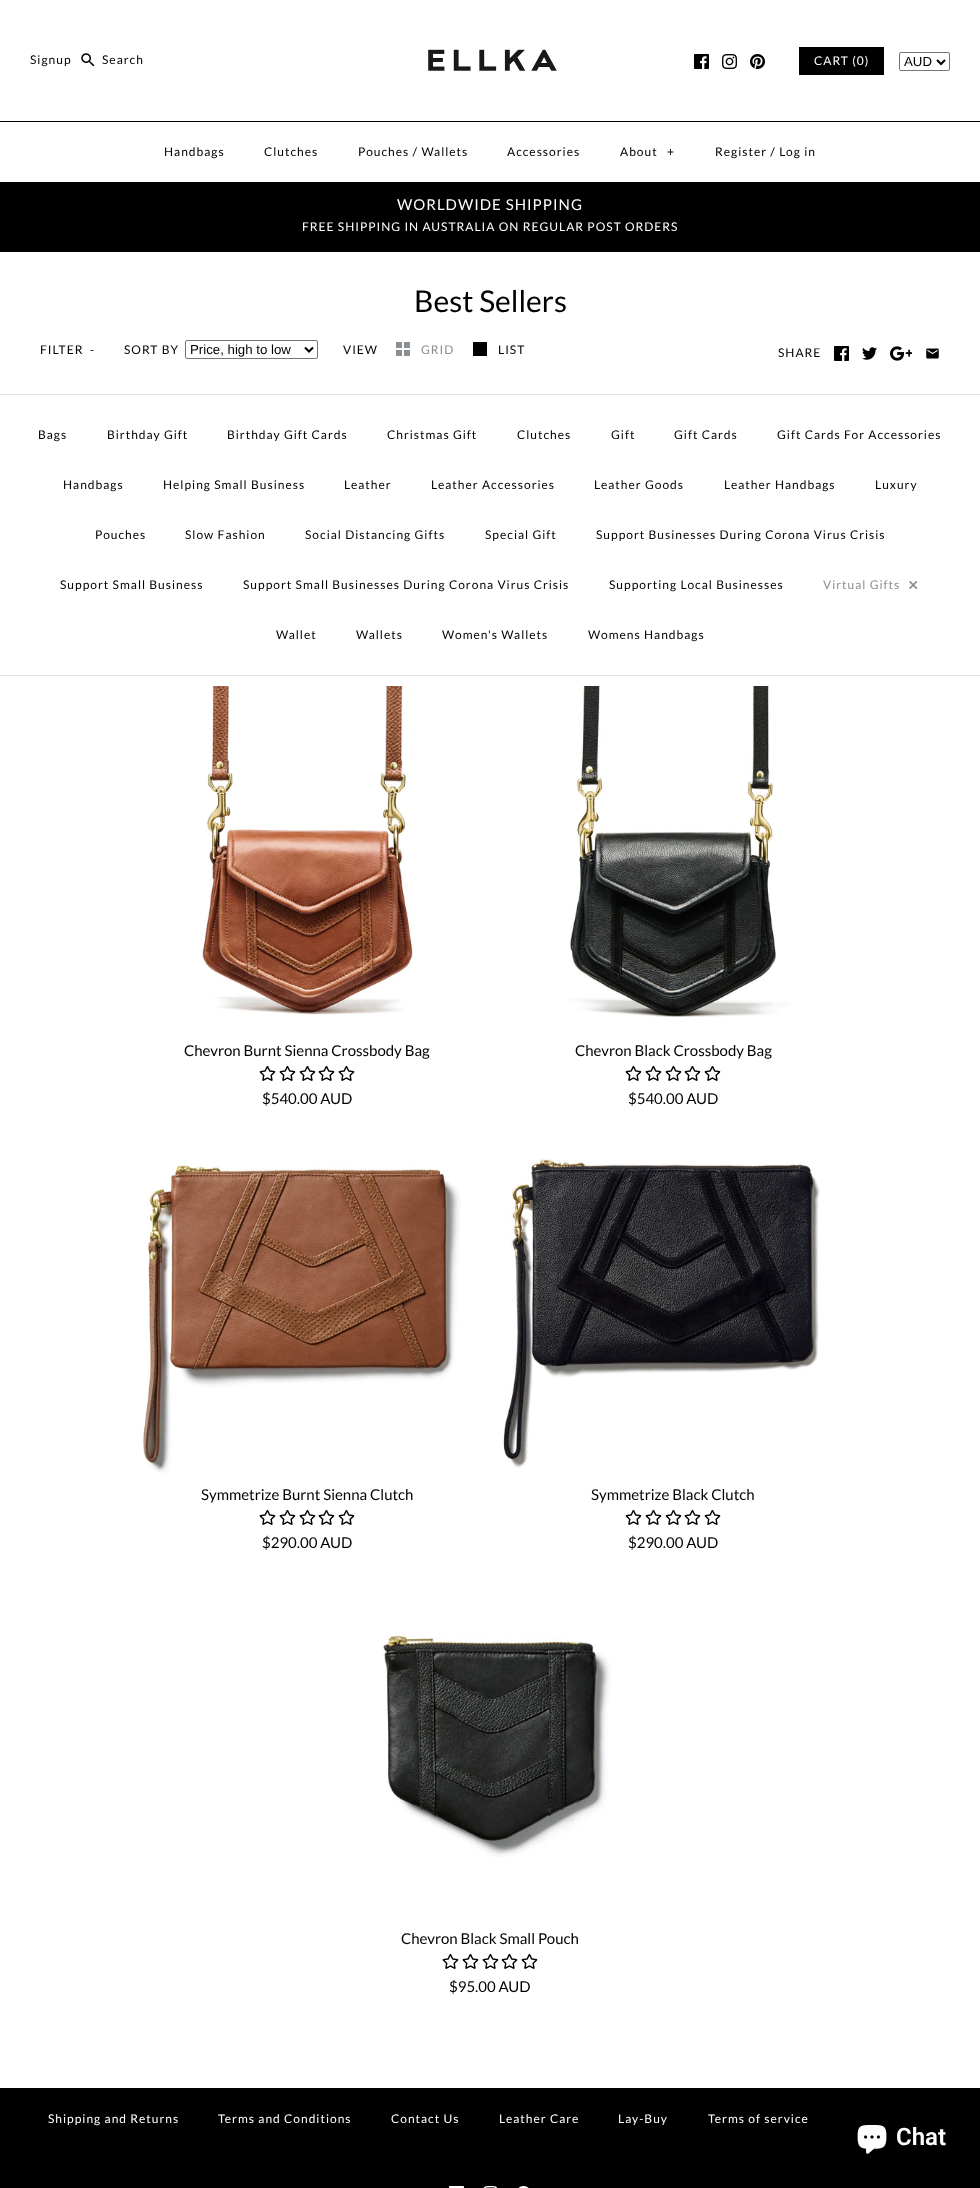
(async () => {
  const canvas = document.querySelector("canvas");
  canvas.width = 980;
  canvas.height = 2188;
  const ctx = canvas.getContext("2d");
  ctx.miterLimit = 4;
  ctx.fontKerning = "normal";
  async function loadImage(src) {
    const img = new Image();
    img.src = src;
    await img.decode();
    return img;
  }
  let path;

  ctx.fillStyle = "#ffffff";
  ctx.fillRect(0, 0, 980, 2188);
  ctx.drawImage(await loadImage("img/1.png"), 428, 49, 129, 23);
  ctx.drawImage(await loadImage("img/2.png"), 81, 53, 14, 14);
  ctx.drawImage(await loadImage("img/3.png"), 694, 54, 15, 15);
  ctx.drawImage(await loadImage("img/4.png"), 722, 54, 15, 15);
  ctx.drawImage(await loadImage("img/5.png"), 750, 54, 15, 15);
  ctx.fillStyle = "#000000";
  ctx.fillRect(799, 47, 85, 28);
  ctx.beginPath();
  ctx.roundRect(899.5, 52.5, 50, 18, 1.5);
  ctx.strokeStyle = "#767676";
  ctx.stroke();
  path = new Path2D("M937 60L941 64L945 60");
  ctx.strokeStyle = "#000000";
  ctx.lineWidth = 2;
  ctx.stroke(path);
  ctx.fillRect(0, 182, 980, 70);
  ctx.fillRect(0, 121, 980, 1);
  ctx.beginPath();
  ctx.roundRect(185.5, 340.5, 132, 18, 1.5);
  ctx.strokeStyle = "#767676";
  ctx.lineWidth = 1;
  ctx.stroke();
  path = new Path2D("M305 347.5L309 351.5L313 347.5");
  ctx.strokeStyle = "#000000";
  ctx.lineWidth = 2;
  ctx.stroke(path);
  for (const [x, y, w, h, color] of [
    [396, 342, 6, 6, "#8a8f93"],
    [404, 342, 6, 6, "#8a8f93"],
    [396, 350, 6, 6, "#8a8f93"],
    [404, 350, 6, 6, "#8a8f93"],
    [473, 342, 14, 14, "#000000"],
  ]) {
    ctx.fillStyle = color;
    ctx.fillRect(x, y, w, h);
  }
  ctx.drawImage(await loadImage("img/3.png"), 834, 346, 15, 15);
  ctx.drawImage(await loadImage("img/6.png"), 862, 347, 15, 13);
  ctx.drawImage(await loadImage("img/7.png"), 890, 346, 22, 15);
  ctx.drawImage(await loadImage("img/8.png"), 926, 348, 13, 11);
  ctx.fillStyle = "#e2e2e2";
  ctx.fillRect(0, 394, 980, 1);
  ctx.fillRect(0, 675, 980, 1);
  ctx.drawImage(await loadImage("img/9.png"), 201, 686, 213, 329);
  ctx.drawImage(await loadImage("img/10.png"), 259, 1066, 17, 15);
  ctx.drawImage(await loadImage("img/10.png"), 279, 1066, 17, 15);
  ctx.drawImage(await loadImage("img/10.png"), 299, 1066, 17, 15);
  ctx.drawImage(await loadImage("img/10.png"), 318, 1066, 17, 15);
  ctx.drawImage(await loadImage("img/10.png"), 338, 1066, 17, 15);
  ctx.drawImage(await loadImage("img/11.png"), 569, 686, 222, 331);
  ctx.drawImage(await loadImage("img/10.png"), 625, 1066, 17, 15);
  ctx.drawImage(await loadImage("img/10.png"), 645, 1066, 17, 15);
  ctx.drawImage(await loadImage("img/10.png"), 665, 1066, 17, 15);
  ctx.drawImage(await loadImage("img/10.png"), 684, 1066, 17, 15);
  ctx.drawImage(await loadImage("img/10.png"), 704, 1066, 17, 15);
  ctx.drawImage(await loadImage("img/12.png"), 143, 1165, 318, 308);
  ctx.drawImage(await loadImage("img/10.png"), 259, 1510, 17, 15);
  ctx.drawImage(await loadImage("img/10.png"), 279, 1510, 17, 15);
  ctx.drawImage(await loadImage("img/10.png"), 299, 1510, 17, 15);
  ctx.drawImage(await loadImage("img/10.png"), 318, 1510, 17, 15);
  ctx.drawImage(await loadImage("img/10.png"), 338, 1510, 17, 15);
  ctx.drawImage(await loadImage("img/13.png"), 503, 1159, 317, 309);
  ctx.drawImage(await loadImage("img/10.png"), 625, 1510, 17, 15);
  ctx.drawImage(await loadImage("img/10.png"), 645, 1510, 17, 15);
  ctx.drawImage(await loadImage("img/10.png"), 665, 1510, 17, 15);
  ctx.drawImage(await loadImage("img/10.png"), 684, 1510, 17, 15);
  ctx.drawImage(await loadImage("img/10.png"), 704, 1510, 17, 15);
  ctx.drawImage(await loadImage("img/14.png"), 382, 1632, 229, 225);
  ctx.drawImage(await loadImage("img/10.png"), 442, 1954, 17, 15);
  ctx.drawImage(await loadImage("img/10.png"), 462, 1954, 17, 15);
  ctx.drawImage(await loadImage("img/10.png"), 482, 1954, 17, 15);
  ctx.drawImage(await loadImage("img/10.png"), 501, 1954, 17, 15);
  ctx.drawImage(await loadImage("img/10.png"), 521, 1954, 17, 15);
  ctx.fillStyle = "#000000";
  ctx.fillRect(0, 2088, 980, 100);
  ctx.drawImage(await loadImage("img/15.png"), 449, 2186, 15, 2);
  ctx.drawImage(await loadImage("img/16.png"), 483, 2186, 15, 2);
  ctx.drawImage(await loadImage("img/17.png"), 518, 2186, 11, 2);
  ctx.drawImage(await loadImage("img/18.png"), 857, 2125, 30, 29);
  ctx.letterSpacing = "1px";
  ctx.font = "12px Lato";
  ctx.fillText("Signup", 30, 64);
  ctx.fillText("Search", 102, 64);
  ctx.fillStyle = "#ffffff";
  ctx.fillText("CART (0)", 814, 65);
  ctx.letterSpacing = "0px";
  ctx.font = "13.25px Liberation Sans";
  ctx.fillStyle = "#000000";
  ctx.fillText("AUD", 904, 66);
  ctx.letterSpacing = "1px";
  ctx.font = "12px Lato";
  for (const [text, x, y] of [
    ["Handbags", 164, 156],
    ["Clutches", 264, 156],
    ["Pouches / Wallets", 358, 156],
    ["Accessories", 507, 156],
    ["About", 620, 156],
    ["+", 667, 156],
    ["Register / Log in", 715, 156],
  ]) {
    ctx.fillText(text, x, y);
  }
  ctx.font = "15px Lato";
  ctx.fillStyle = "#ffffff";
  ctx.fillText("WORLDWIDE SHIPPING", 397, 210);
  ctx.font = "12px Lato";
  ctx.fillText("FREE SHIPPING IN AUSTRALIA ON REGULAR POST ORDERS", 302, 231);
  ctx.letterSpacing = "0px";
  ctx.font = "30px Lato";
  ctx.fillStyle = "#000000";
  ctx.fillText("Best Sellers", 414, 312);
  ctx.letterSpacing = "1px";
  ctx.font = "12px Lato";
  for (const [text, x, y] of [
    ["FILTER", 40, 354],
    ["-", 90, 354],
    ["SORT BY", 124, 354],
  ]) {
    ctx.fillText(text, x, y);
  }
  ctx.letterSpacing = "0px";
  ctx.font = "13.25px Liberation Sans";
  ctx.fillText("Price, high to low", 190, 354);
  ctx.letterSpacing = "1px";
  ctx.font = "12px Lato";
  ctx.fillText("VIEW", 343, 354);
  ctx.fillStyle = "#8a8f93";
  ctx.fillText("GRID", 421, 354);
  ctx.fillStyle = "#000000";
  for (const [text, x, y] of [
    ["LIST", 498, 354],
    ["SHARE", 778, 357],
    ["Bags", 38, 439],
    ["Birthday Gift", 107, 439],
    ["Birthday Gift Cards", 227, 439],
    ["Christmas Gift", 387, 439],
    ["Clutches", 517, 439],
    ["Gift", 611, 439],
    ["Gift Cards", 674, 439],
    ["Gift Cards For Accessories", 777, 439],
    ["Handbags", 63, 489],
    ["Helping Small Business", 163, 489],
    ["Leather", 344, 489],
    ["Leather Accessories", 431, 489],
    ["Leather Goods", 594, 489],
    ["Leather Handbags", 724, 489],
    ["Luxury", 875, 489],
    ["Pouches", 95, 539],
    ["Slow Fashion", 185, 539],
    ["Social Distancing Gifts", 305, 539],
    ["Special Gift", 485, 539],
    ["Support Businesses During Corona Virus Crisis", 596, 539],
    ["Support Small Business", 60, 589],
    ["Support Small Businesses During Corona Virus Crisis", 243, 589],
    ["Supporting Local Businesses", 609, 589],
  ]) {
    ctx.fillText(text, x, y);
  }
  ctx.fillStyle = "#8a8f93";
  ctx.fillText("Virtual Gifts", 823, 589);
  ctx.font = "bold 18px Lato";
  ctx.fillText("×", 908, 591);
  ctx.font = "12px Lato";
  ctx.fillStyle = "#000000";
  for (const [text, x, y] of [
    ["Wallet", 276, 639],
    ["Wallets", 356, 639],
    ["Women's Wallets", 442, 639],
    ["Womens Handbags", 588, 639],
  ]) {
    ctx.fillText(text, x, y);
  }
  ctx.letterSpacing = "0px";
  ctx.font = "15px Lato";
  for (const [text, x, y] of [
    ["Chevron Burnt Sienna Crossbody Bag", 184, 1056],
    ["$540.00 AUD", 262, 1104],
    ["Chevron Black Crossbody Bag", 575, 1056],
    ["$540.00 AUD", 628, 1104],
    ["Symmetrize Burnt Sienna Clutch", 201, 1500],
    ["$290.00 AUD", 262, 1548],
    ["Symmetrize Black Clutch", 591, 1500],
    ["$290.00 AUD", 628, 1548],
    ["Chevron Black Small Pouch", 401, 1944],
    ["$95.00 AUD", 449, 1992],
  ]) {
    ctx.fillText(text, x, y);
  }
  ctx.letterSpacing = "1px";
  ctx.font = "12px Lato";
  ctx.fillStyle = "#ffffff";
  for (const [text, x, y] of [
    ["Shipping and Returns", 48, 2123],
    ["Terms and Conditions", 218, 2123],
    ["Contact Us", 391, 2123],
    ["Leather Care", 499, 2123],
    ["Lay-Buy", 618, 2123],
    ["Terms of service", 708, 2123],
  ]) {
    ctx.fillText(text, x, y);
  }
  ctx.letterSpacing = "0px";
  ctx.font = "600 24px Roboto";
  ctx.fillText("Chat", 896, 2145);
})();
